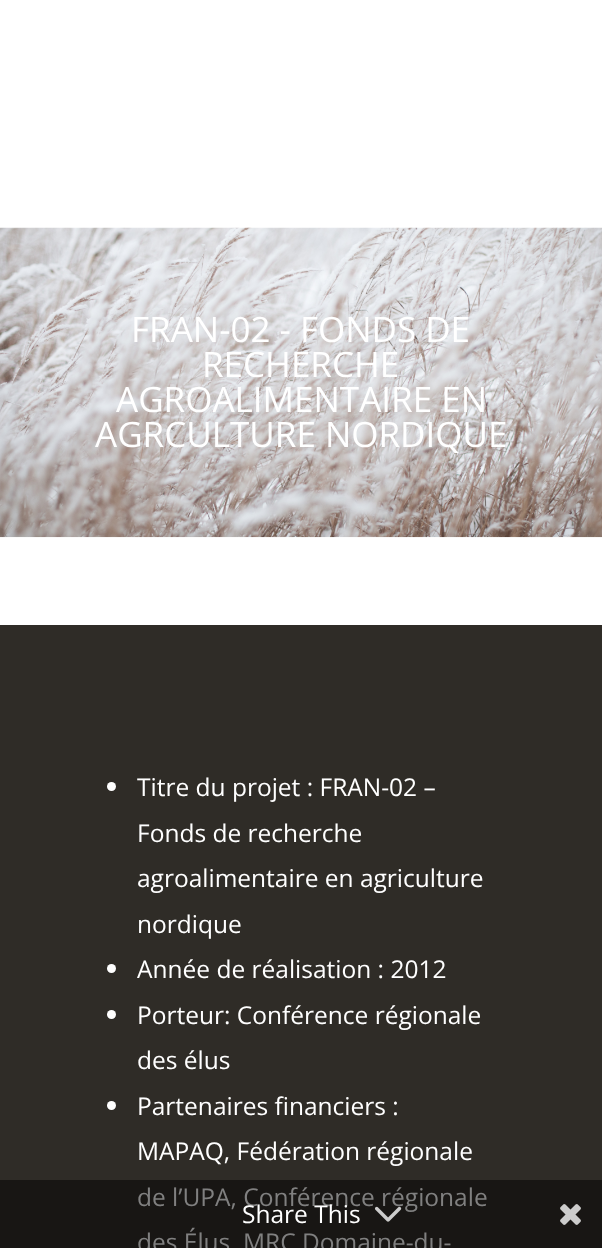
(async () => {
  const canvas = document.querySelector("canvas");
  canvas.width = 602;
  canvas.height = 1248;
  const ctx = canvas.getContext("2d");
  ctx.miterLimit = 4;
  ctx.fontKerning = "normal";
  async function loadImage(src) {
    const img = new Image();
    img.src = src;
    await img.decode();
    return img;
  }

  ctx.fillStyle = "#ffffff";
  ctx.fillRect(0, 0, 602, 1248);
  ctx.drawImage(await loadImage("img/1.png"), 0, 227, 602, 311);
  ctx.fillStyle = "#2f2c27";
  ctx.fillRect(0, 625, 602, 555);
  ctx.fillStyle = "#181614";
  ctx.fillRect(0, 1180, 602, 68);
  ctx.fillStyle = "#ffffff";
  ctx.beginPath();
  ctx.arc(111.5, 786.5, 4.5, 0, Math.PI * 2);
  ctx.fill();
  ctx.beginPath();
  ctx.arc(111.5, 968.5, 4.5, 0, Math.PI * 2);
  ctx.fill();
  ctx.beginPath();
  ctx.arc(111.5, 1014.5, 4.5, 0, Math.PI * 2);
  ctx.fill();
  ctx.beginPath();
  ctx.arc(111.5, 1105.5, 4.5, 0, Math.PI * 2);
  ctx.fill();
  ctx.drawImage(await loadImage("img/3.png"), 560, 1204, 21, 21);
  ctx.font = "35px Open Sans";
  for (const [text, x, y] of [
    ["FRAN-02 - FONDS DE", 131, 342],
    ["RECHERCHE", 202, 377],
    ["AGROALIMENTAIRE EN", 116, 412],
    ["AGRCULTURE NORDIQUE", 95, 447],
  ]) {
    ctx.fillText(text, x, y);
  }
  ctx.font = "24.5px Open Sans";
  for (const [text, x, y] of [
    ["Titre du projet : FRAN-02 –", 137, 796],
    ["Fonds de recherche", 137, 842],
    ["agroalimentaire en agriculture", 137, 887],
    ["nordique", 137, 933],
    ["Année de réalisation : 2012", 137, 978],
    ["Porteur: Conférence régionale", 137, 1024],
    ["des élus", 137, 1069],
    ["Partenaires financiers :", 137, 1115],
    ["MAPAQ, Fédération régionale", 137, 1160],
  ]) {
    ctx.fillText(text, x, y);
  }
  ctx.fillStyle = "#808080";
  ctx.fillText("de l’UPA, Conférence régionale", 137, 1206);
  ctx.fillText("des Élus, MRC Domaine-du-", 137, 1251);
  ctx.fillStyle = "#ffffff";
  ctx.fillText("Share This", 242, 1223);
  ctx.drawImage(await loadImage("img/2.png"), 375, 1206, 27, 16);
})();
